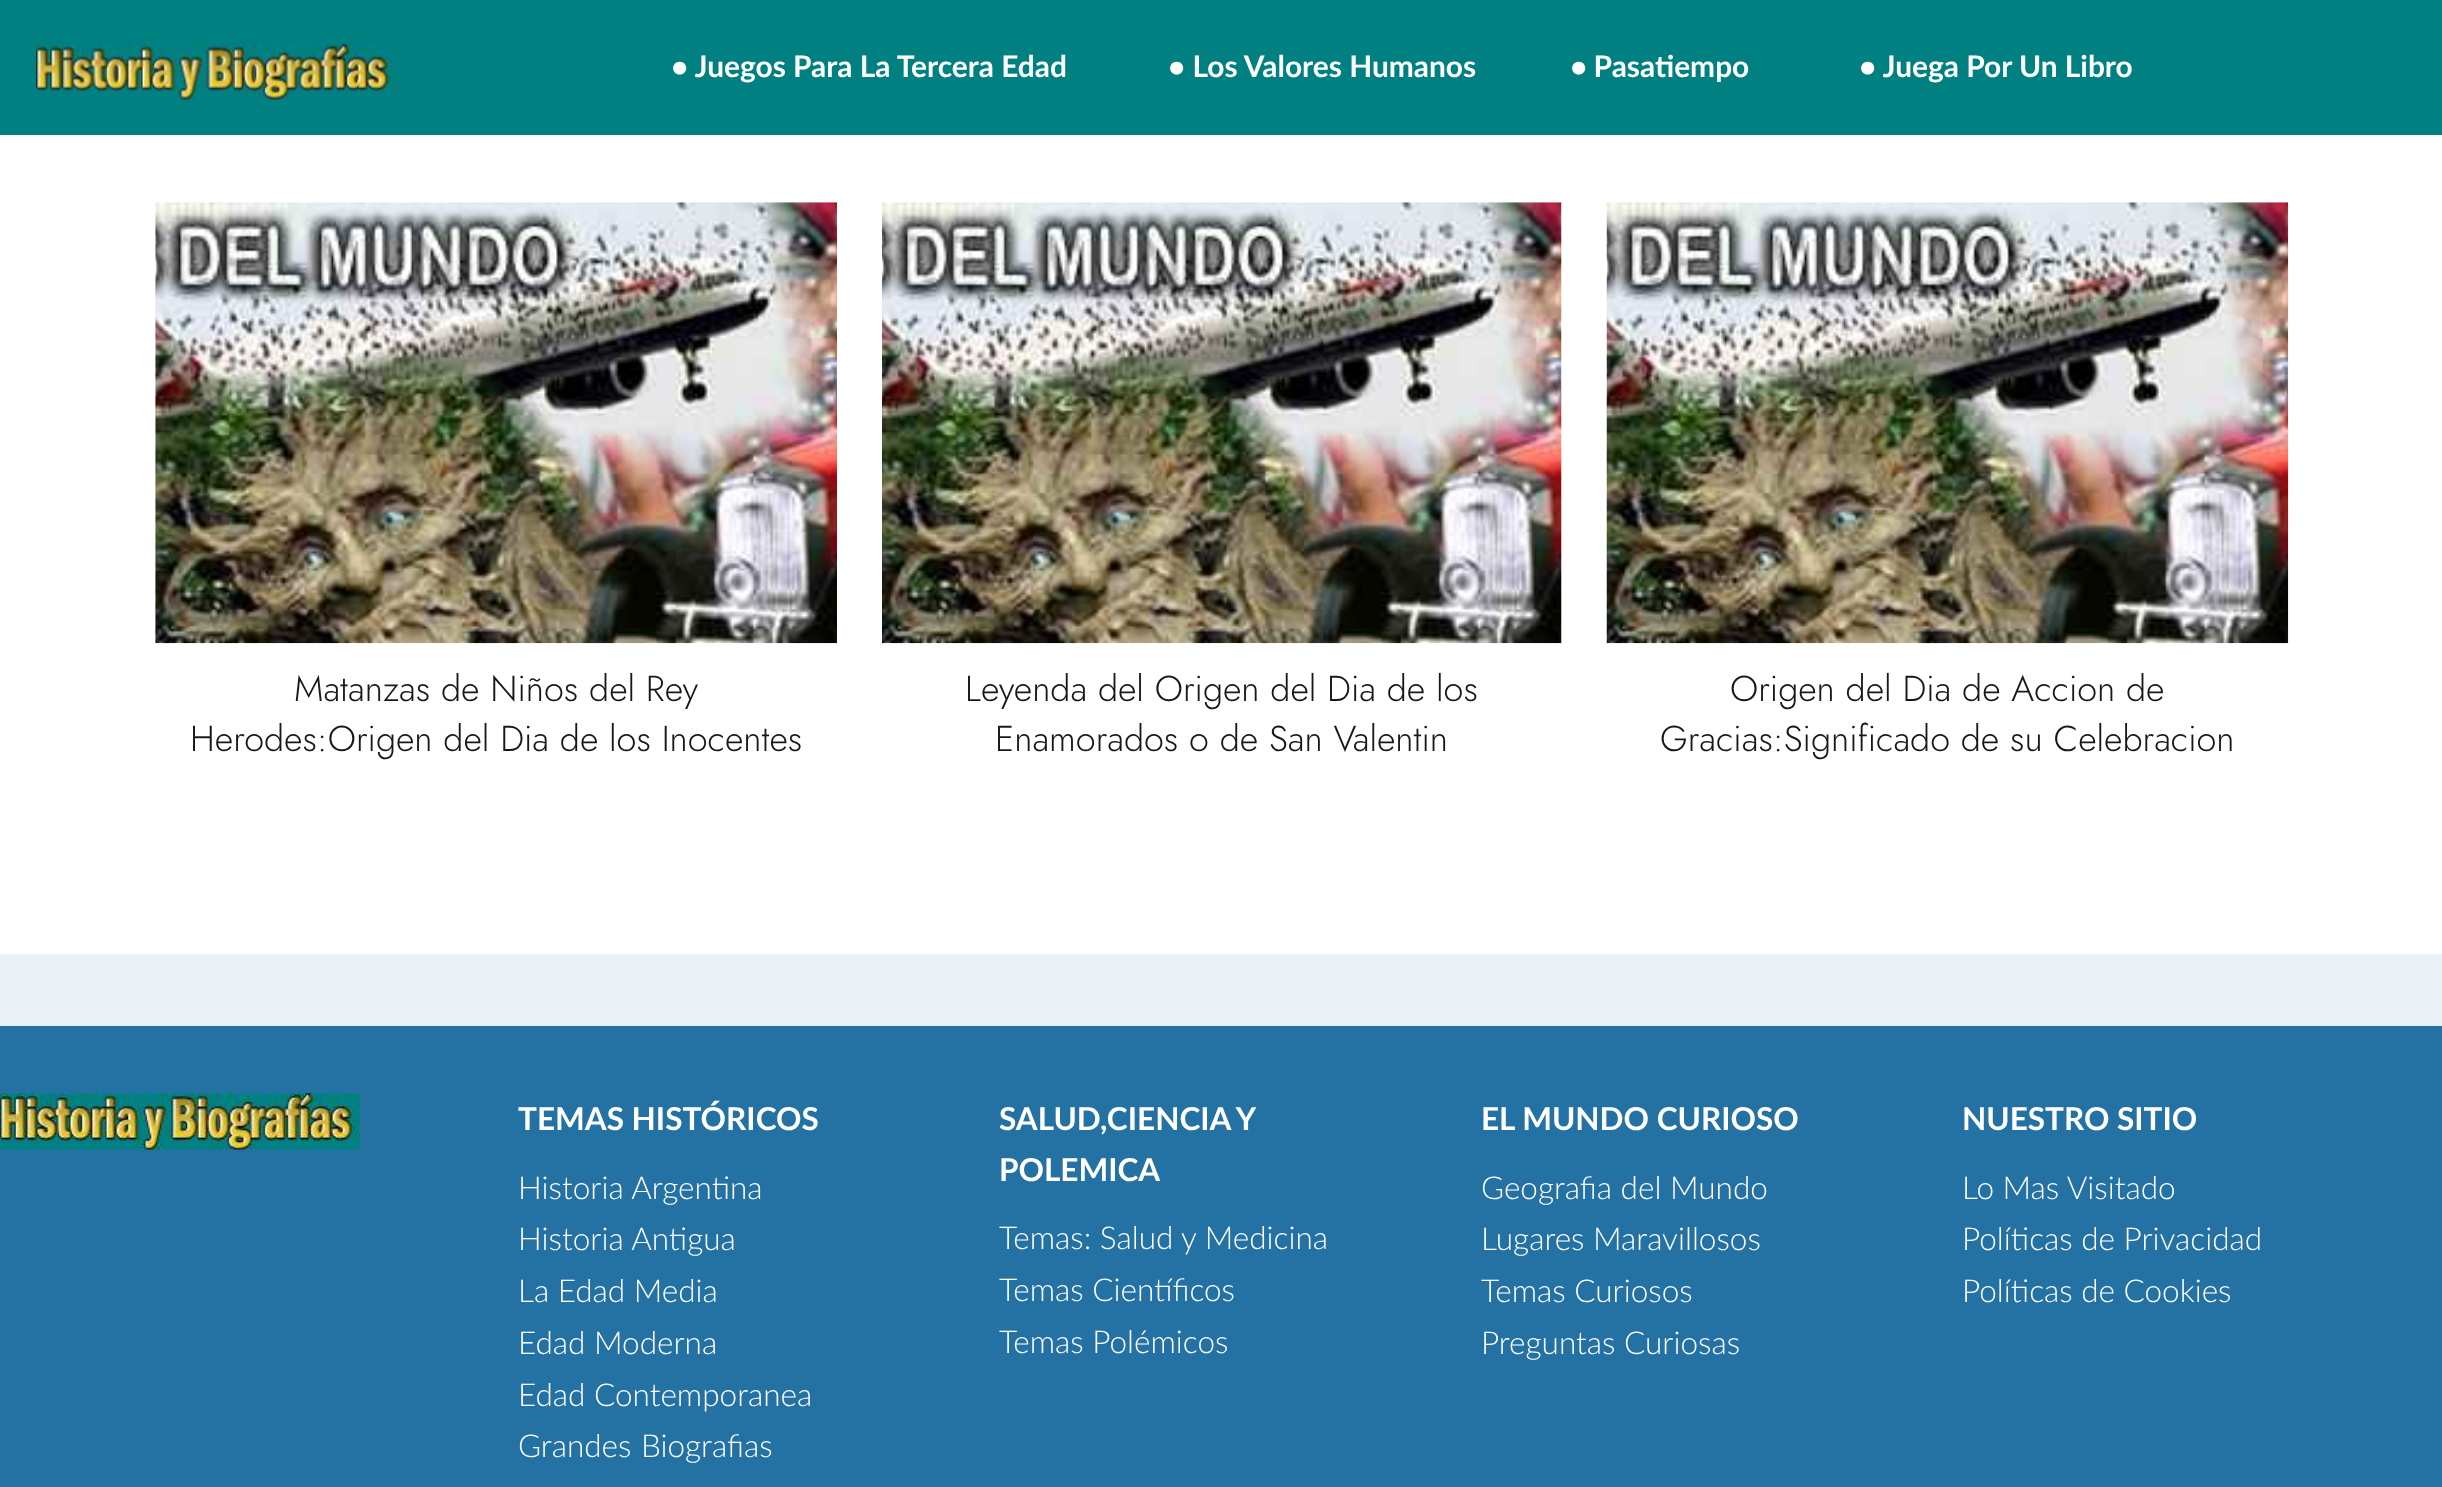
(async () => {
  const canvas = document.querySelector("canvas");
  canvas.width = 2442;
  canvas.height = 1487;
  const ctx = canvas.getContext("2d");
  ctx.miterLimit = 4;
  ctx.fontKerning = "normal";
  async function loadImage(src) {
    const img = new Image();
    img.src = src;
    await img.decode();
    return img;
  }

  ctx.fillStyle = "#ffffff";
  ctx.fillRect(0, 0, 2442, 1487);
  ctx.fillStyle = "#008080";
  ctx.fillRect(0, 0, 2442, 135);
  ctx.drawImage(await loadImage("img/1.png"), 36, 43, 360, 57);
  ctx.drawImage(await loadImage("img/2.png"), 155, 202, 682, 442);
  ctx.drawImage(await loadImage("img/3.png"), 882, 202, 680, 442);
  ctx.drawImage(await loadImage("img/4.png"), 1606, 202, 683, 442);
  ctx.fillStyle = "#eaf1f6";
  ctx.fillRect(0, 954, 2442, 72);
  ctx.fillStyle = "#2471a3";
  ctx.fillRect(0, 1026, 2442, 461);
  ctx.drawImage(await loadImage("img/5.png"), 0, 1093, 360, 57);
  ctx.font = "bold 29.9px Lato";
  ctx.fillStyle = "#ffffff";
  ctx.fillText("• Juegos Para La Tercera Edad", 671, 77);
  ctx.fillText("• Los Valores Humanos", 1168, 77);
  ctx.wordSpacing = "-1px";
  ctx.fillText("• Pasatiempo", 1570, 77);
  ctx.wordSpacing = "0px";
  ctx.fillText("• Juega Por Un Libro", 1859, 77);
  ctx.font = "300 36px Jost";
  ctx.fillStyle = "#181818";
  for (const [text, x, y] of [
    ["Matanzas de Niños del Rey", 294, 701],
    ["Herodes:Origen del Dia de los Inocentes", 190, 751],
    ["Leyenda del Origen del Dia de los", 965, 701],
    ["Enamorados o de San Valentin", 995, 751],
    ["Origen del Dia de Accion de", 1730, 701],
    ["Gracias:Significado de su Celebracion", 1660, 751],
  ]) {
    ctx.fillText(text, x, y);
  }
  ctx.font = "bold 31.5px Lato";
  ctx.fillStyle = "#ffffff";
  ctx.fillText("TEMAS HISTÓRICOS", 518, 1130);
  ctx.font = "300 31.5px Lato";
  for (const [text, x, y] of [
    ["Historia Argentina", 518, 1199],
    ["Historia Antigua", 518, 1250],
    ["La Edad Media", 518, 1302],
    ["Edad Moderna", 518, 1354],
    ["Edad Contemporanea", 518, 1406],
  ]) {
    ctx.fillText(text, x, y);
  }
  ctx.wordSpacing = "1px";
  ctx.fillText("Grandes Biografias", 518, 1457);
  ctx.wordSpacing = "-1px";
  ctx.font = "bold 31.5px Lato";
  ctx.fillText("SALUD,CIENCIA Y", 999, 1130);
  ctx.wordSpacing = "0px";
  ctx.fillText("POLEMICA", 999, 1181);
  ctx.font = "300 31.5px Lato";
  for (const [text, x, y] of [
    ["Temas: Salud y Medicina", 999, 1249],
    ["Temas Científicos", 999, 1301],
    ["Temas Polémicos", 999, 1353],
  ]) {
    ctx.fillText(text, x, y);
  }
  ctx.font = "bold 31.5px Lato";
  ctx.fillText("EL MUNDO CURIOSO", 1481, 1130);
  ctx.font = "300 31.5px Lato";
  for (const [text, x, y] of [
    ["Geografia del Mundo", 1481, 1199],
    ["Lugares Maravillosos", 1481, 1250],
    ["Temas Curiosos", 1481, 1302],
    ["Preguntas Curiosas", 1481, 1354],
  ]) {
    ctx.fillText(text, x, y);
  }
  ctx.font = "bold 31.5px Lato";
  ctx.fillText("NUESTRO SITIO", 1962, 1130);
  ctx.font = "300 31.5px Lato";
  for (const [text, x, y] of [
    ["Lo Mas Visitado", 1962, 1199],
    ["Políticas de Privacidad", 1962, 1250],
    ["Políticas de Cookies", 1962, 1302],
  ]) {
    ctx.fillText(text, x, y);
  }
})();
